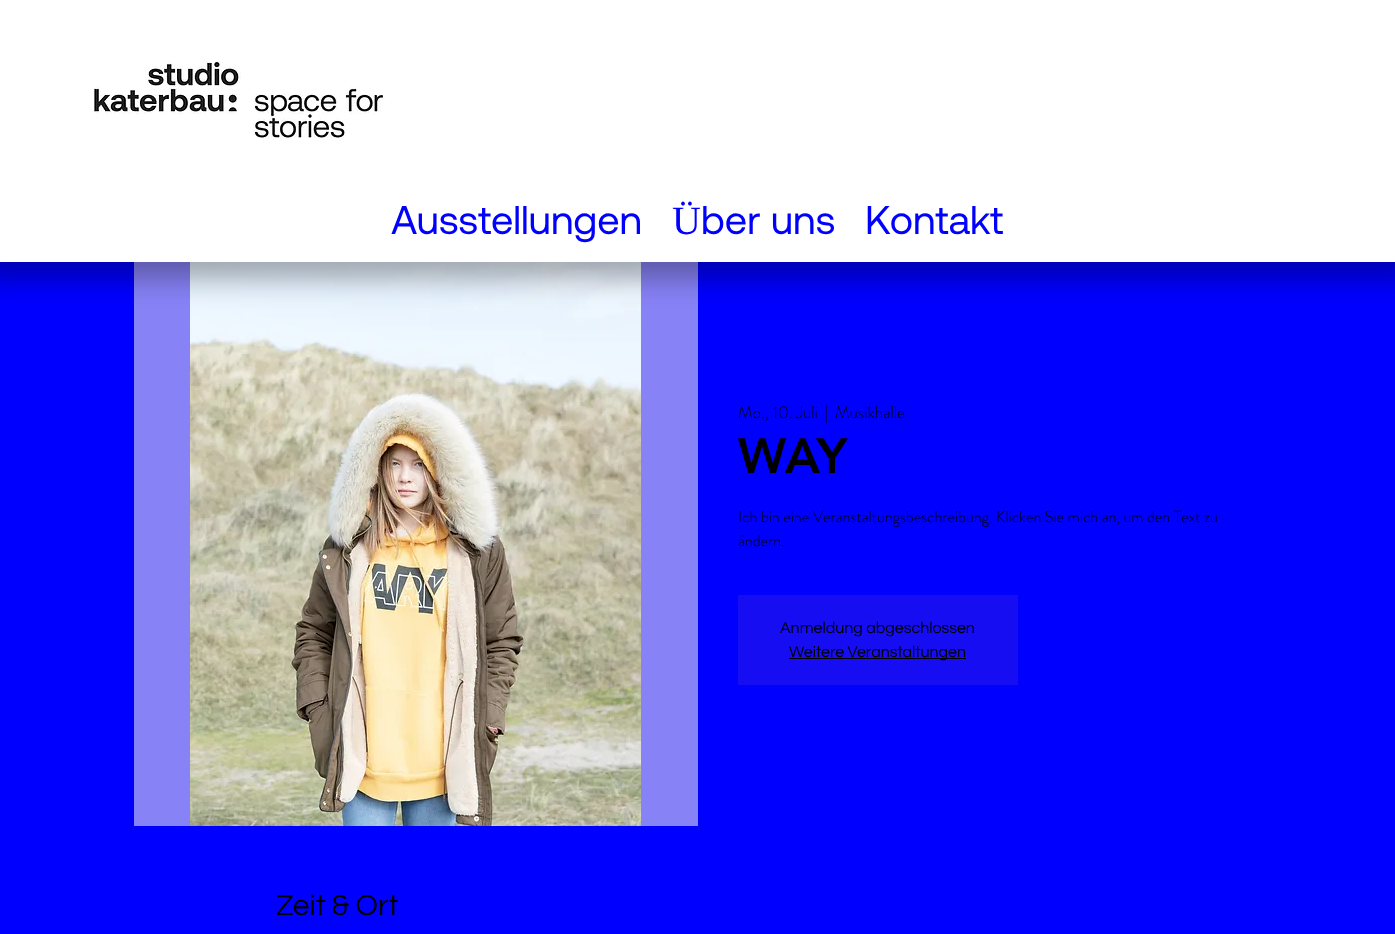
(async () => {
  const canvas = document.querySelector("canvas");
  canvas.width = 1395;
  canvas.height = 934;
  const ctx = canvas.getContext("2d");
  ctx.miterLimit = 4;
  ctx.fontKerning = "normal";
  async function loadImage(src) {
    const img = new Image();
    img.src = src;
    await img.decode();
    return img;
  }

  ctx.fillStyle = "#0000ff";
  ctx.fillRect(0, 0, 1395, 934);
  ctx.fillStyle = "#8782f6";
  ctx.fillRect(134, 262, 564, 564);
  ctx.drawImage(await loadImage("img/2.png"), 190, 262, 451, 564);
  ctx.fillStyle = "rgba(0, 0, 0, 0.3)";
  ctx.filter = "blur(13.5px)";
  ctx.beginPath();
  ctx.rect(-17, -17, 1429, 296);
  ctx.fill();
  ctx.filter = "none";
  ctx.fillStyle = "#ffffff";
  ctx.fillRect(0, 0, 1395, 262);
  ctx.drawImage(await loadImage("img/1.png"), 94, 62, 291, 76);
  ctx.fillStyle = "#170df2";
  ctx.fillRect(738, 595, 280, 90);
  ctx.fillStyle = "#000000";
  ctx.fillRect(789, 658, 177, 1);
  ctx.font = "40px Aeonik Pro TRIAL";
  ctx.fillStyle = "#0000ff";
  ctx.fillText("Ausstellungen", 391, 234);
  ctx.font = "40px Liberation Serif";
  ctx.fillText("Ü", 672, 234);
  ctx.font = "40px Aeonik Pro TRIAL";
  ctx.fillText("ber uns", 701, 234);
  ctx.fillText("Kontakt", 865, 234);
  ctx.font = "300 17px 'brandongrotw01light'";
  ctx.fillStyle = "#000000";
  for (const [text, x, y] of [
    ["Mo., 10. Juli", 738, 418],
    ["|", 825, 418],
    ["Musikhalle", 835, 418],
  ]) {
    ctx.fillText(text, x, y);
  }
  ctx.font = "900 49px 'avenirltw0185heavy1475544'";
  ctx.fillText("WAY", 738, 473);
  ctx.font = "300 16px 'brandongrotw01light'";
  ctx.fillText("Ich bin eine Veranstaltungsbeschreibung. Klicken Sie mich an, um den Text zu", 738, 522);
  ctx.fillText("ändern.", 738, 546);
  ctx.font = "16px Questrial";
  ctx.fillText("Anmeldung abgeschlossen", 780, 633);
  ctx.fillText("Weitere Veranstaltungen", 789, 657);
  ctx.font = "30px Questrial";
  ctx.fillText("Zeit & Ort", 276, 915);
})();
